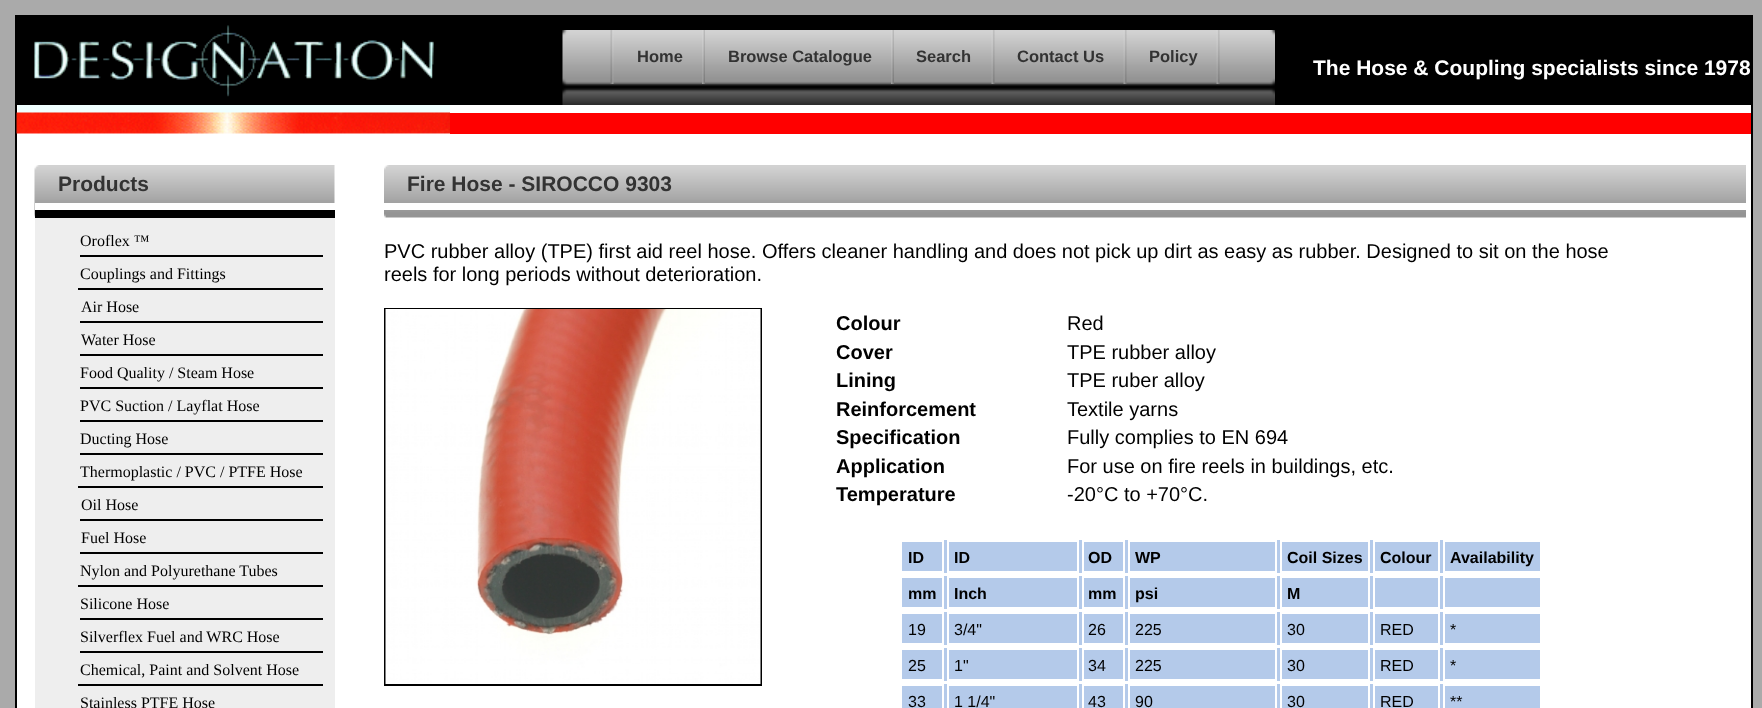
(async () => {
  const canvas = document.querySelector("canvas");
  canvas.width = 1762;
  canvas.height = 708;
  const ctx = canvas.getContext("2d");
  ctx.miterLimit = 4;
  ctx.fontKerning = "normal";
  async function loadImage(src) {
    const img = new Image();
    img.src = src;
    await img.decode();
    return img;
  }

  ctx.fillStyle = "#aaaaaa";
  ctx.fillRect(0, 0, 1762, 708);
  for (const [x, y, w, h, color] of [
    [17, 105, 1734, 603, "#ffffff"],
    [1751, 15, 2, 693, "#000000"],
    [15, 15, 2, 693, "#000000"],
    [17, 15, 1734, 90, "#000000"],
  ]) {
    ctx.fillStyle = color;
    ctx.fillRect(x, y, w, h);
  }
  ctx.drawImage(await loadImage("img/1.png"), 34, 25, 400, 72);
  ctx.drawImage(await loadImage("img/2.png"), 562, 30, 713, 75);
  ctx.drawImage(await loadImage("img/3.png"), 610, 30, 4, 54);
  ctx.drawImage(await loadImage("img/4.png"), 702, 30, 3, 54);
  ctx.drawImage(await loadImage("img/5.png"), 891, 30, 3, 54);
  ctx.drawImage(await loadImage("img/6.png"), 991, 30, 4, 54);
  ctx.drawImage(await loadImage("img/6.png"), 1123, 30, 4, 54);
  ctx.drawImage(await loadImage("img/6.png"), 1216, 30, 4, 54);
  ctx.fillStyle = "#efffff";
  ctx.fillRect(18, 105, 432, 8);
  ctx.drawImage(await loadImage("img/7.png"), 16, 112, 434, 22);
  ctx.fillStyle = "#ff0000";
  ctx.fillRect(450, 113, 1301, 21);
  ctx.drawImage(await loadImage("img/8.png"), 34, 165, 301, 53);
  for (const [x, y, w, h, color] of [
    [35, 203, 300, 7, "#ffffff"],
    [35, 210, 300, 8, "#000000"],
    [35, 218, 300, 490, "#eeeeee"],
    [80, 255, 243, 2, "#000000"],
    [78, 288, 245, 2, "#000000"],
    [80, 321, 243, 2, "#000000"],
    [80, 354, 243, 2, "#000000"],
    [80, 387, 243, 2, "#000000"],
    [80, 420, 243, 2, "#000000"],
    [80, 453, 243, 2, "#000000"],
    [78, 486, 245, 2, "#000000"],
    [80, 519, 243, 2, "#000000"],
    [80, 552, 243, 2, "#000000"],
    [78, 585, 245, 2, "#000000"],
    [80, 618, 243, 2, "#000000"],
    [80, 651, 243, 2, "#000000"],
    [78, 684, 245, 2, "#000000"],
  ]) {
    ctx.fillStyle = color;
    ctx.fillRect(x, y, w, h);
  }
  ctx.drawImage(await loadImage("img/9.png"), 384, 165, 1362, 53);
  ctx.fillStyle = "#ffffff";
  ctx.fillRect(384, 203, 1362, 7);
  ctx.strokeStyle = "#000000";
  ctx.lineWidth = 2;
  ctx.strokeRect(385, 309, 376, 376);
  ctx.drawImage(await loadImage("img/10.png"), 385, 309, 376, 375);
  ctx.fillStyle = "#b4caea";
  ctx.fillRect(902, 540, 638, 33);
  ctx.strokeStyle = "#ffffff";
  ctx.strokeRect(901, 541, 42, 31);
  ctx.strokeRect(948, 541, 130, 31);
  ctx.strokeRect(1083, 541, 41, 31);
  ctx.strokeRect(1129, 541, 147, 31);
  ctx.strokeRect(1281, 541, 88, 31);
  ctx.strokeRect(1374, 541, 65, 31);
  ctx.strokeRect(1444, 541, 97, 31);
  ctx.fillRect(902, 576, 638, 33);
  ctx.strokeRect(901, 577, 42, 31);
  ctx.strokeRect(948, 577, 130, 31);
  ctx.strokeRect(1083, 577, 41, 31);
  ctx.strokeRect(1129, 577, 147, 31);
  ctx.strokeRect(1281, 577, 88, 31);
  ctx.strokeRect(1374, 577, 65, 31);
  ctx.strokeRect(1444, 577, 97, 31);
  ctx.fillRect(902, 612, 638, 33);
  ctx.strokeRect(901, 613, 42, 31);
  ctx.strokeRect(948, 613, 130, 31);
  ctx.strokeRect(1083, 613, 41, 31);
  ctx.strokeRect(1129, 613, 147, 31);
  ctx.strokeRect(1281, 613, 88, 31);
  ctx.strokeRect(1374, 613, 65, 31);
  ctx.strokeRect(1444, 613, 97, 31);
  ctx.fillRect(902, 648, 638, 33);
  ctx.strokeRect(901, 649, 42, 31);
  ctx.strokeRect(948, 649, 130, 31);
  ctx.strokeRect(1083, 649, 41, 31);
  ctx.strokeRect(1129, 649, 147, 31);
  ctx.strokeRect(1281, 649, 88, 31);
  ctx.strokeRect(1374, 649, 65, 31);
  ctx.strokeRect(1444, 649, 97, 31);
  ctx.fillRect(902, 684, 638, 24);
  ctx.strokeRect(901, 685, 42, 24);
  ctx.strokeRect(948, 685, 130, 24);
  ctx.strokeRect(1083, 685, 41, 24);
  ctx.strokeRect(1129, 685, 147, 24);
  ctx.strokeRect(1281, 685, 88, 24);
  ctx.strokeRect(1374, 685, 65, 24);
  ctx.strokeRect(1444, 685, 97, 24);
  ctx.font = "bold 16.5px Liberation Sans";
  ctx.fillStyle = "#333333";
  for (const [text, x, y] of [
    ["Home", 637, 62],
    ["Browse Catalogue", 728, 62],
    ["Search", 916, 62],
    ["Contact Us", 1017, 62],
    ["Policy", 1149, 62],
  ]) {
    ctx.fillText(text, x, y);
  }
  ctx.font = "bold 21px Liberation Sans";
  ctx.fillStyle = "#ffffff";
  ctx.fillText("The Hose & Coupling specialists since 1978", 1313, 75);
  ctx.fillStyle = "#333333";
  ctx.fillText("Products", 58, 191);
  ctx.font = "16px Liberation Serif";
  ctx.fillStyle = "#000000";
  for (const [text, x, y] of [
    ["Oroflex ™", 80, 246],
    ["Couplings and Fittings", 80, 279],
    ["Air Hose", 81, 312],
    ["Water Hose", 81, 345],
    ["Food Quality / Steam Hose", 80, 378],
    ["PVC Suction / Layflat Hose", 80, 411],
    ["Ducting Hose", 80, 444],
    ["Thermoplastic / PVC / PTFE Hose", 80, 477],
    ["Oil Hose", 81, 510],
    ["Fuel Hose", 81, 543],
    ["Nylon and Polyurethane Tubes", 80, 576],
    ["Silicone Hose", 80, 609],
    ["Silverflex Fuel and WRC Hose", 80, 642],
    ["Chemical, Paint and Solvent Hose", 80, 675],
    ["Stainless PTFE Hose", 80, 708],
  ]) {
    ctx.fillText(text, x, y);
  }
  ctx.font = "bold 21px Liberation Sans";
  ctx.fillStyle = "#333333";
  ctx.fillText("Fire Hose - SIROCCO 9303", 407, 191);
  ctx.font = "20px Liberation Sans";
  ctx.fillStyle = "#000000";
  ctx.fillText("PVC rubber alloy (TPE) first aid reel hose. Offers cleaner handling and does not pick up dirt as easy as rubber. Designed to sit on the hose", 384, 258);
  ctx.fillText("reels for long periods without deterioration.", 384, 281);
  ctx.font = "bold 20px Liberation Sans";
  ctx.fillText("Colour", 836, 330);
  ctx.font = "20px Liberation Sans";
  ctx.fillText("Red", 1067, 330);
  ctx.font = "bold 20px Liberation Sans";
  ctx.fillText("Cover", 836, 359);
  ctx.font = "20px Liberation Sans";
  ctx.fillText("TPE rubber alloy", 1067, 359);
  ctx.font = "bold 20px Liberation Sans";
  ctx.fillText("Lining", 836, 387);
  ctx.font = "20px Liberation Sans";
  ctx.fillText("TPE ruber alloy", 1067, 387);
  ctx.font = "bold 20px Liberation Sans";
  ctx.fillText("Reinforcement", 836, 416);
  ctx.font = "20px Liberation Sans";
  ctx.fillText("Textile yarns", 1067, 416);
  ctx.font = "bold 20px Liberation Sans";
  ctx.fillText("Specification", 836, 444);
  ctx.font = "20px Liberation Sans";
  ctx.fillText("Fully complies to EN 694", 1067, 444);
  ctx.font = "bold 20px Liberation Sans";
  ctx.fillText("Application", 836, 473);
  ctx.font = "20px Liberation Sans";
  ctx.fillText("For use on fire reels in buildings, etc.", 1067, 473);
  ctx.font = "bold 20px Liberation Sans";
  ctx.fillText("Temperature", 836, 501);
  ctx.font = "20px Liberation Sans";
  ctx.fillText("-20°C to +70°C.", 1067, 501);
  ctx.font = "bold 16px Liberation Sans";
  for (const [text, x, y] of [
    ["ID", 908, 563],
    ["ID", 954, 563],
    ["OD", 1088, 563],
    ["WP", 1135, 563],
    ["Coil Sizes", 1287, 563],
    ["Colour", 1380, 563],
    ["Availability", 1450, 563],
    ["mm", 908, 599],
    ["Inch", 954, 599],
    ["mm", 1088, 599],
    ["psi", 1135, 599],
    ["M", 1287, 599],
  ]) {
    ctx.fillText(text, x, y);
  }
  ctx.font = "16px Liberation Sans";
  for (const [text, x, y] of [
    ["19", 908, 635],
    ["3/4\"", 954, 635],
    ["26", 1088, 635],
    ["225", 1135, 635],
    ["30", 1287, 635],
    ["RED", 1380, 635],
    ["*", 1450, 635],
    ["25", 908, 671],
    ["1\"", 954, 671],
    ["34", 1088, 671],
    ["225", 1135, 671],
    ["30", 1287, 671],
    ["RED", 1380, 671],
    ["*", 1450, 671],
    ["33", 908, 707],
    ["1 1/4\"", 954, 707],
    ["43", 1088, 707],
    ["90", 1135, 707],
    ["30", 1287, 707],
    ["RED", 1380, 707],
    ["**", 1450, 707],
  ]) {
    ctx.fillText(text, x, y);
  }
})();
